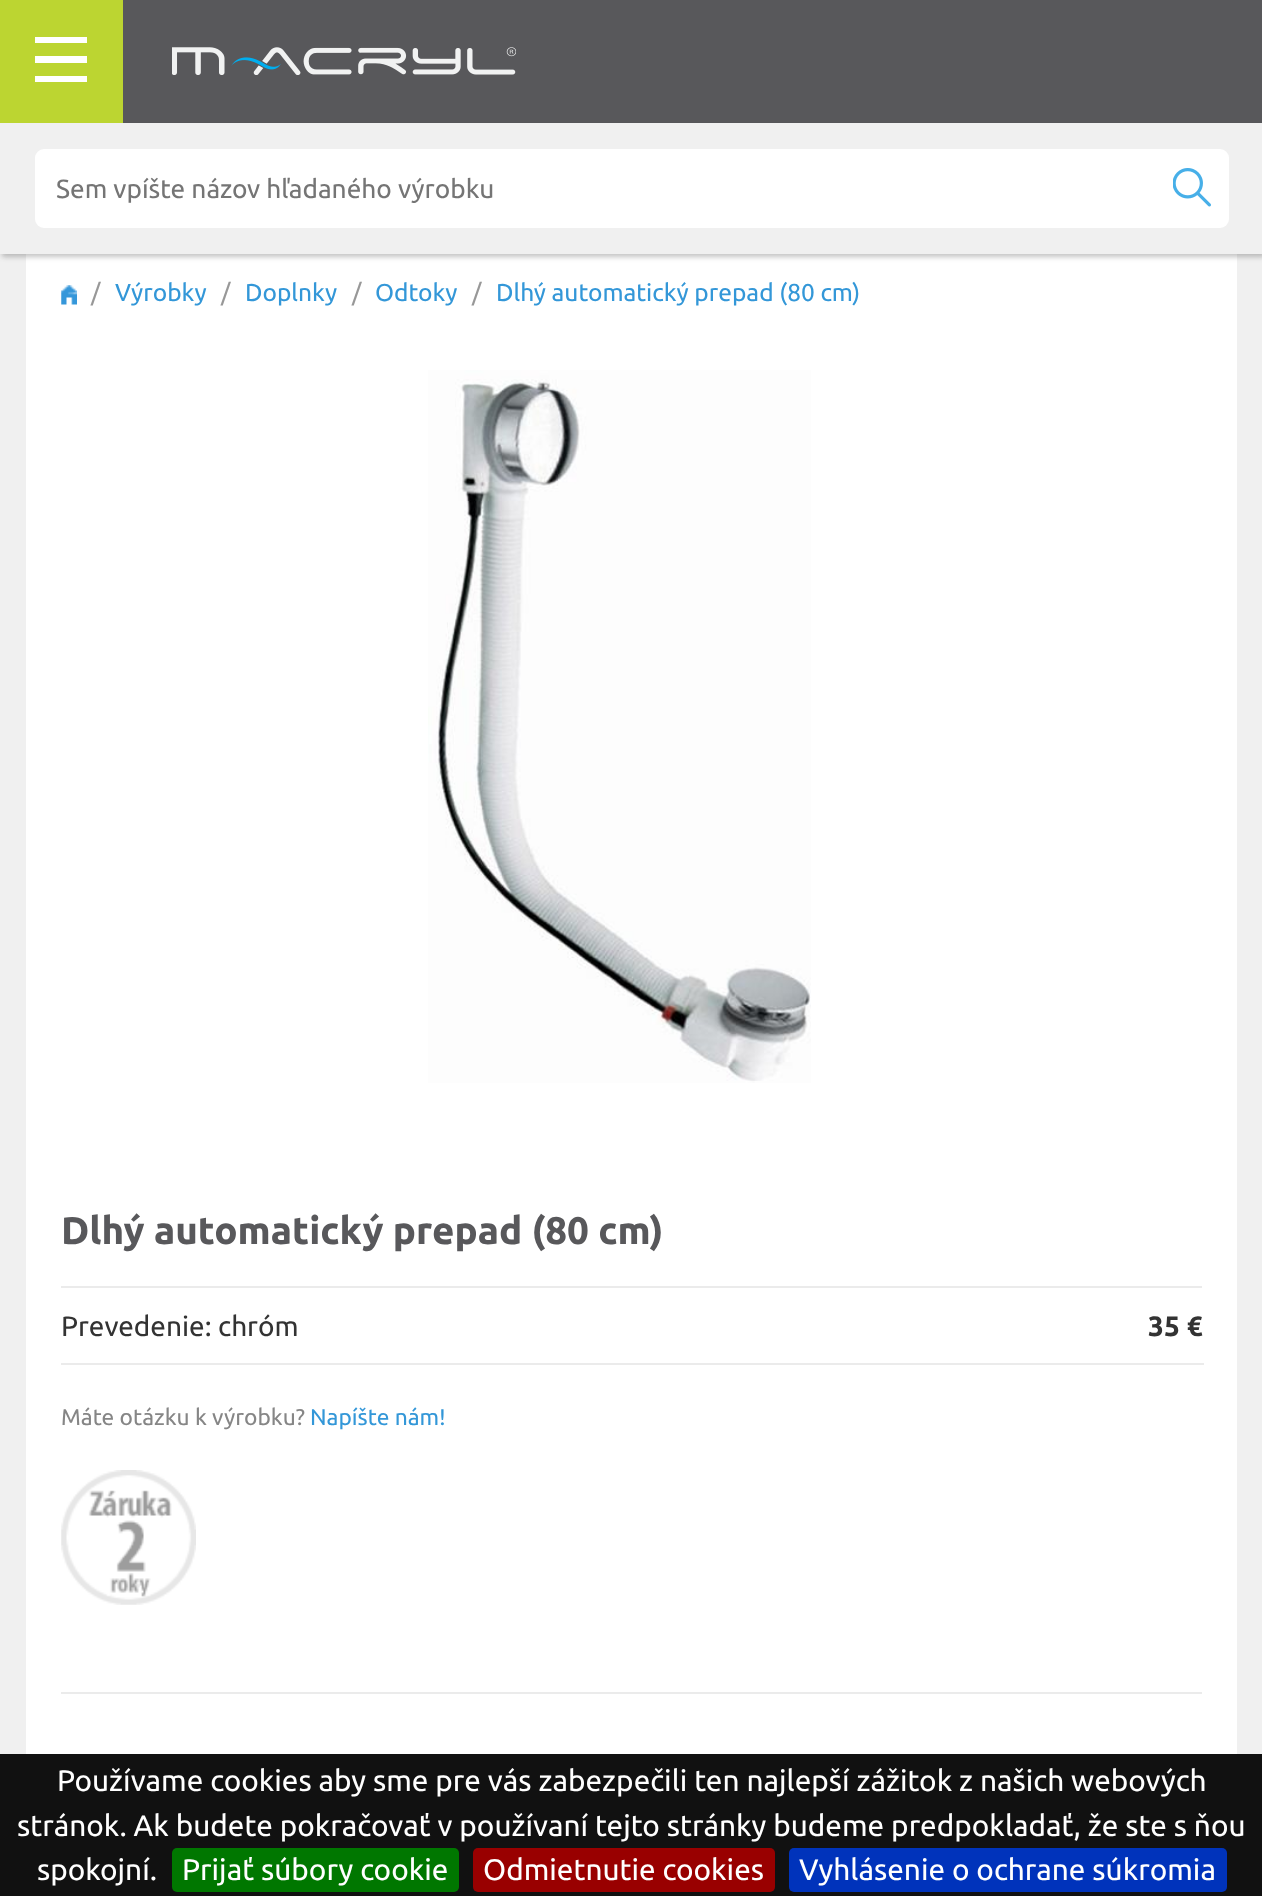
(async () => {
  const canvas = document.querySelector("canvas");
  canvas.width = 1262;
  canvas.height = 1896;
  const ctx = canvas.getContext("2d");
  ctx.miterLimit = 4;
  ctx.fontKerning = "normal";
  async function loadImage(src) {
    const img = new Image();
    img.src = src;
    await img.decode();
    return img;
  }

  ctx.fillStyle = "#f0f0f0";
  ctx.fillRect(0, 0, 1262, 1896);
  ctx.fillStyle = "#58585b";
  ctx.fillRect(123, 0, 1139, 123);
  ctx.fillStyle = "#ffffff";
  ctx.fillRect(26, 254, 1211, 1500);
  ctx.fillStyle = "rgba(50, 50, 50, 0.29)";
  ctx.filter = "blur(2.5px)";
  ctx.beginPath();
  ctx.rect(2, 126, 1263, 131);
  ctx.fill();
  ctx.filter = "none";
  for (const [x, y, w, h, color] of [
    [0, 0, 123, 123, "#bcd531"],
    [35, 37, 52, 6, "#ffffff"],
    [35, 56, 52, 7, "#ffffff"],
    [35, 76, 52, 6, "#ffffff"],
  ]) {
    ctx.fillStyle = color;
    ctx.fillRect(x, y, w, h);
  }
  ctx.drawImage(await loadImage("img/1.png"), 172, 47, 344, 28);
  ctx.fillStyle = "#f0f0f0";
  ctx.fillRect(0, 123, 1262, 131);
  ctx.fillStyle = "#ffffff";
  ctx.beginPath();
  ctx.roundRect(35, 149, 1194, 79, 9);
  ctx.fill();
  ctx.drawImage(await loadImage("img/2.png"), 1173, 168, 38, 39);
  ctx.drawImage(await loadImage("img/3.png"), 61, 285, 16, 20);
  ctx.drawImage(await loadImage("img/4.png"), 428, 370, 383, 713);
  ctx.fillStyle = "#ebebeb";
  ctx.fillRect(61, 1286, 1141, 2);
  ctx.fillRect(61, 1363, 1143, 2);
  ctx.drawImage(await loadImage("img/5.png"), 61, 1470, 135, 135);
  ctx.fillRect(61, 1692, 1141, 2);
  ctx.fillStyle = "#111111";
  ctx.fillRect(0, 1754, 1262, 142);
  ctx.fillStyle = "#007700";
  ctx.beginPath();
  ctx.roundRect(172, 1848, 287, 44, 5);
  ctx.fill();
  ctx.fillStyle = "#990000";
  ctx.beginPath();
  ctx.roundRect(473, 1848, 302, 44, 5);
  ctx.fill();
  ctx.fillStyle = "#0033bb";
  ctx.beginPath();
  ctx.roundRect(789, 1848, 438, 44, 5);
  ctx.fill();
  ctx.font = "26.25px Ubuntu";
  ctx.fillStyle = "#757575";
  ctx.fillText("Sem vpíšte názov hľadaného výrobku", 56, 198);
  ctx.font = "24.5px Ubuntu";
  ctx.fillStyle = "#989898";
  ctx.fillText("/", 91, 301);
  ctx.fillStyle = "#3397d8";
  ctx.fillText("Výrobky", 115, 301);
  ctx.fillStyle = "#989898";
  ctx.fillText("/", 221, 301);
  ctx.fillStyle = "#3397d8";
  ctx.fillText("Doplnky", 245, 301);
  ctx.fillStyle = "#989898";
  ctx.fillText("/", 352, 301);
  ctx.fillStyle = "#3397d8";
  ctx.fillText("Odtoky", 375, 301);
  ctx.fillStyle = "#989898";
  ctx.fillText("/", 472, 301);
  ctx.fillStyle = "#3397d8";
  ctx.fillText("Dlhý automatický prepad (80 cm)", 496, 301);
  ctx.font = "bold 38.5px Ubuntu";
  ctx.fillStyle = "#58585b";
  ctx.fillText("Dlhý automatický prepad (80 cm)", 61, 1244);
  ctx.font = "28px Ubuntu";
  ctx.fillStyle = "#333333";
  ctx.fillText("Prevedenie: chróm", 61, 1336);
  ctx.font = "bold 28px Ubuntu";
  ctx.fillText("35 €", 1148, 1336);
  ctx.font = "22.75px Ubuntu";
  ctx.fillStyle = "#868686";
  ctx.fillText("Máte otázku k výrobku?", 61, 1425);
  ctx.fillStyle = "#3397d8";
  ctx.fillText("Napíšte nám!", 310, 1425);
  ctx.font = "29.75px Ubuntu";
  ctx.fillStyle = "#ffffff";
  for (const [text, x, y] of [
    ["Používame cookies aby sme pre vás zabezpečili ten najlepší zážitok z našich webových", 57, 1791],
    ["stránok. Ak budete pokračovať v používaní tejto stránky budeme predpokladať, že ste s ňou", 17, 1836],
    ["spokojní.", 37, 1880],
    ["Prijať súbory cookie", 182, 1880],
    ["Odmietnutie cookies", 483, 1880],
    ["Vyhlásenie o ochrane súkromia", 799, 1880],
  ]) {
    ctx.fillText(text, x, y);
  }
})();
